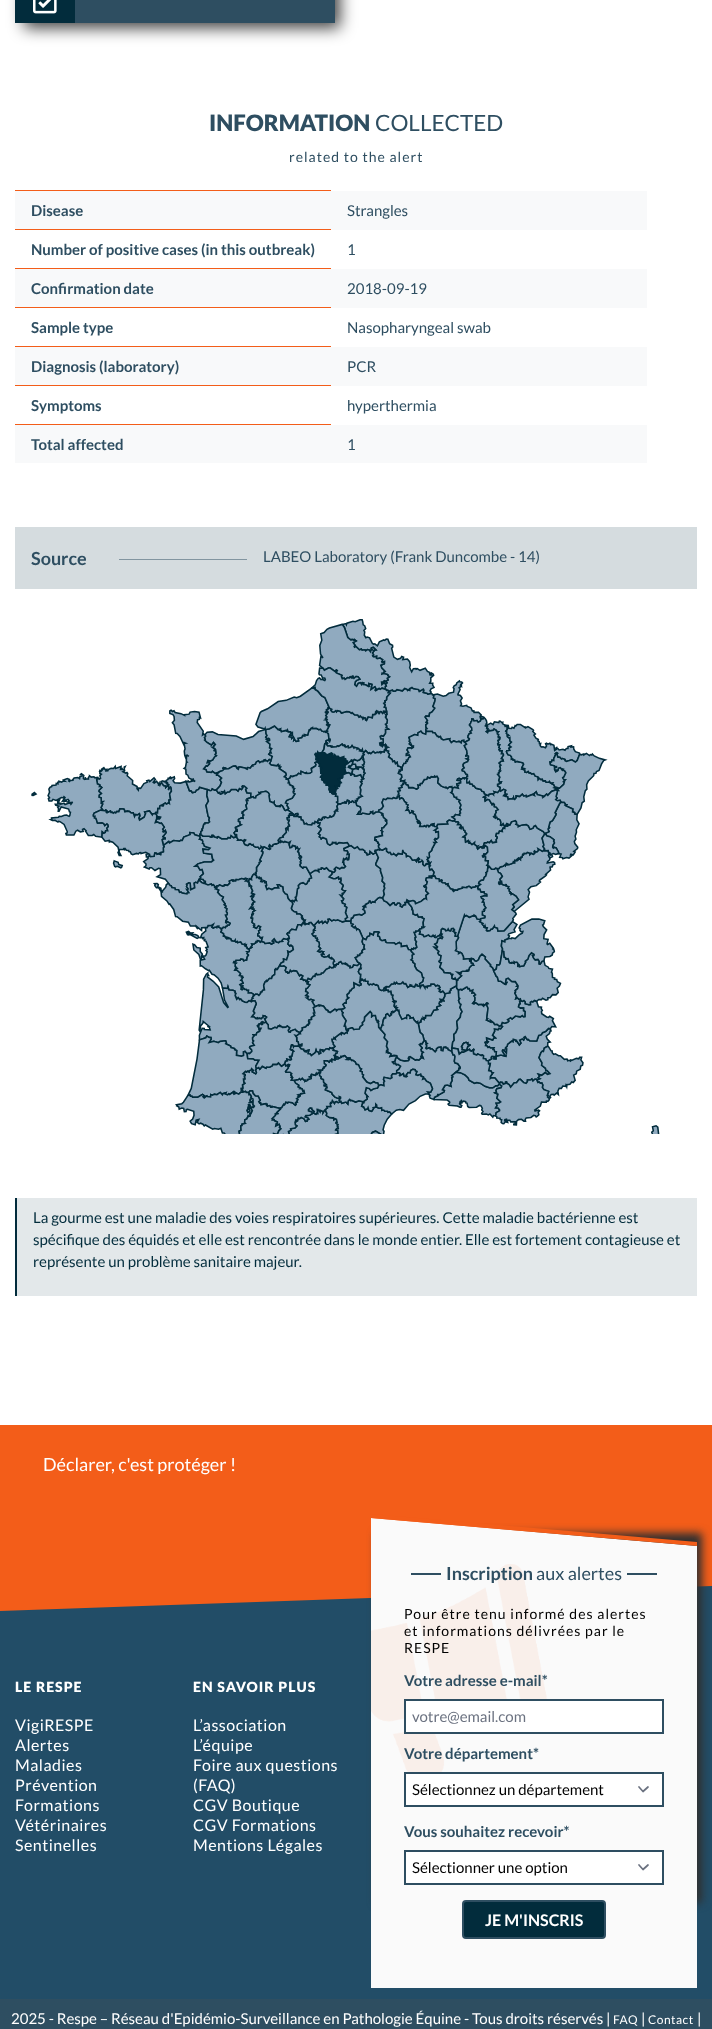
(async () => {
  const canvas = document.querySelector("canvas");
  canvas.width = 712;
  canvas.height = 2029;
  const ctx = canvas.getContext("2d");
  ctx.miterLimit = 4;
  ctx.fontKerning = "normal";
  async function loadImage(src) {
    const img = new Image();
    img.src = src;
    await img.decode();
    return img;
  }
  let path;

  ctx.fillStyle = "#ffffff";
  ctx.fillRect(0, 0, 712, 2029);
  ctx.fillStyle = "rgba(0, 0, 0, 0.75)";
  ctx.filter = "blur(8px)";
  ctx.beginPath();
  ctx.rect(24, -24, 316, 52);
  ctx.fill();
  ctx.filter = "none";
  ctx.fillStyle = "#2e4e61";
  ctx.fillRect(75, 0, 260, 23);
  ctx.fillStyle = "#022c3c";
  ctx.fillRect(15, 0, 60, 23);
  ctx.drawImage(await loadImage("img/1.png"), 33, 0, 24, 14);
  for (const [x, y, w, h, color] of [
    [15, 191, 632, 39, "#f8f9fa"],
    [15, 190, 316, 1, "#f35d19"],
    [15, 229, 316, 1, "#f35d19"],
    [15, 269, 632, 39, "#f8f9fa"],
    [15, 268, 316, 1, "#f35d19"],
    [15, 307, 316, 1, "#f35d19"],
    [15, 347, 632, 39, "#f8f9fa"],
    [15, 346, 316, 1, "#f35d19"],
    [15, 385, 316, 1, "#f35d19"],
    [15, 425, 632, 38, "#f8f9fa"],
    [15, 424, 316, 1, "#f35d19"],
    [15, 527, 682, 62, "#d5dcdf"],
    [119, 559, 128, 1, "#8295a0"],
  ]) {
    ctx.fillStyle = color;
    ctx.fillRect(x, y, w, h);
  }
  ctx.drawImage(await loadImage("img/2.png"), 31, 619, 629, 515);
  for (const [x, y, w, h, color] of [
    [17, 1198, 680, 98, "#e3e8ea"],
    [15, 1198, 2, 98, "#022c3c"],
    [0, 1425, 712, 186, "#f35d19"],
  ]) {
    ctx.fillStyle = color;
    ctx.fillRect(x, y, w, h);
  }
  ctx.fillStyle = "#224d67";
  path = new Path2D("M0 1611L712 1586V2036L0 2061Z");
  ctx.fill(path);
  ctx.fillStyle = "#303030";
  ctx.filter = "blur(4px)";
  ctx.beginPath();
  ctx.rect(376, 1533, 326, 370);
  ctx.fill();
  ctx.filter = "none";
  ctx.fillStyle = "#fafafa";
  path = new Path2D("M371 1518L697 1546V1912L371 1884Z");
  ctx.fill(path);
  ctx.fillStyle = "#f35d19";
  path = new Path2D("M371 1514L697 1542V1546L371 1518Z");
  ctx.fill(path);
  ctx.fillStyle = "#fafafa";
  ctx.fillRect(371, 1884, 326, 104);
  ctx.drawImage(await loadImage("img/3.png"), 371, 1564, 176, 208);
  ctx.fillStyle = "#2e4e61";
  ctx.fillRect(411, 1573, 30, 2);
  ctx.fillRect(627, 1573, 30, 2);
  ctx.fillStyle = "#ffffff";
  ctx.beginPath();
  ctx.rect(405, 1700, 258, 33);
  ctx.fill();
  ctx.strokeStyle = "#2e4e61";
  ctx.lineWidth = 2;
  ctx.stroke();
  ctx.fillRect(406, 1774, 256, 31);
  path = new Path2D("M639 1787L643 1791.5L648 1787");
  ctx.strokeStyle = "#6b7280";
  ctx.lineWidth = 1.7;
  ctx.lineCap = "round";
  ctx.lineJoin = "round";
  ctx.stroke(path);
  ctx.strokeStyle = "#2e4e61";
  ctx.lineWidth = 2;
  ctx.lineJoin = "miter";
  ctx.strokeRect(405, 1773, 258, 33);
  ctx.fillRect(406, 1852, 256, 31);
  path = new Path2D("M639 1865L643 1869.5L648 1865");
  ctx.strokeStyle = "#6b7280";
  ctx.lineWidth = 1.7;
  ctx.lineJoin = "round";
  ctx.stroke(path);
  ctx.strokeStyle = "#2e4e61";
  ctx.lineWidth = 2;
  ctx.lineJoin = "miter";
  ctx.strokeRect(405, 1851, 258, 33);
  ctx.fillStyle = "#022c3c";
  ctx.beginPath();
  ctx.roundRect(463, 1901, 142, 37, 3);
  ctx.fill();
  ctx.stroke();
  ctx.fillStyle = "#2e4e61";
  ctx.fillRect(0, 1999, 712, 30);
  ctx.font = "900 22.5px Lato";
  ctx.fillText("INFORMATION", 209, 131);
  ctx.font = "22.5px Lato";
  ctx.fillText("COLLECTED", 375, 131);
  ctx.letterSpacing = "1px";
  ctx.font = "14px Lato";
  ctx.fillText("related to the alert", 289, 162);
  ctx.letterSpacing = "0px";
  ctx.font = "bold 15px Lato";
  ctx.fillText("Disease", 31, 216);
  ctx.font = "15px Lato";
  ctx.fillText("Strangles", 347, 216);
  ctx.font = "bold 15px Lato";
  ctx.fillText("Number of positive cases (in this outbreak)", 31, 255);
  ctx.font = "15px Lato";
  ctx.fillText("1", 347, 255);
  ctx.font = "bold 15px Lato";
  ctx.fillText("Confirmation date", 31, 294);
  ctx.font = "15px Lato";
  ctx.fillText("2018-09-19", 347, 294);
  ctx.font = "bold 15px Lato";
  ctx.fillText("Sample type", 31, 333);
  ctx.font = "15px Lato";
  ctx.fillText("Nasopharyngeal swab", 347, 333);
  ctx.font = "bold 15px Lato";
  ctx.fillText("Diagnosis (laboratory)", 31, 372);
  ctx.font = "15px Lato";
  ctx.fillText("PCR", 347, 372);
  ctx.font = "bold 15px Lato";
  ctx.fillText("Symptoms", 31, 411);
  ctx.font = "15px Lato";
  ctx.fillText("hyperthermia", 347, 411);
  ctx.font = "bold 15px Lato";
  ctx.fillText("Total affected", 31, 450);
  ctx.font = "15px Lato";
  ctx.fillText("1", 347, 450);
  ctx.font = "bold 18px Lato";
  ctx.fillText("Source", 31, 565);
  ctx.font = "15px Lato";
  ctx.fillText("LABEO Laboratory (Frank Duncombe - 14)", 263, 562);
  ctx.fillStyle = "#022c3c";
  for (const [text, x, y] of [
    ["La gourme est une maladie des voies respiratoires supérieures. Cette maladie bactérienne est", 33, 1223],
    ["spécifique des équidés et elle est rencontrée dans le monde entier. Elle est fortement contagieuse et", 33, 1245],
    ["représente un problème sanitaire majeur.", 33, 1267],
  ]) {
    ctx.fillText(text, x, y);
  }
  ctx.font = "18px Lato";
  ctx.fillStyle = "#ffffff";
  ctx.fillText("Déclarer, c'est protéger !", 43, 1471);
  ctx.letterSpacing = "1px";
  ctx.font = "900 14px Lato";
  ctx.fillText("LE RESPE", 15, 1692);
  ctx.letterSpacing = "0.5px";
  ctx.font = "16px Lato";
  for (const [text, x, y] of [
    ["VigiRESPE", 15, 1731],
    ["Alertes", 15, 1751],
    ["Maladies", 15, 1771],
    ["Prévention", 15, 1791],
    ["Formations", 15, 1811],
    ["Vétérinaires", 15, 1831],
    ["Sentinelles", 15, 1851],
  ]) {
    ctx.fillText(text, x, y);
  }
  ctx.letterSpacing = "1px";
  ctx.font = "900 14px Lato";
  ctx.fillText("EN SAVOIR PLUS", 193, 1692);
  ctx.letterSpacing = "0.5px";
  ctx.font = "16px Lato";
  for (const [text, x, y] of [
    ["L’association", 193, 1731],
    ["L’équipe", 193, 1751],
    ["Foire aux questions", 193, 1771],
    ["(FAQ)", 193, 1791],
    ["CGV Boutique", 193, 1811],
    ["CGV Formations", 193, 1831],
    ["Mentions Légales", 193, 1851],
  ]) {
    ctx.fillText(text, x, y);
  }
  ctx.letterSpacing = "0px";
  ctx.font = "bold 18px Lato";
  ctx.fillStyle = "#2e4e61";
  ctx.fillText("Inscription", 446, 1580);
  ctx.font = "18px Lato";
  ctx.fillText("aux alertes", 536, 1580);
  ctx.letterSpacing = "1px";
  ctx.font = "14px Lato";
  ctx.fillStyle = "#000000";
  for (const [text, x, y] of [
    ["Pour être tenu informé des alertes", 404, 1619],
    ["et informations délivrées par le", 404, 1636],
    ["RESPE", 404, 1653],
  ]) {
    ctx.fillText(text, x, y);
  }
  ctx.letterSpacing = "0px";
  ctx.font = "bold 15px Lato";
  ctx.fillStyle = "#2e4e61";
  ctx.fillText("Votre adresse e-mail*", 404, 1686);
  ctx.font = "15px Lato";
  ctx.fillStyle = "#6b7280";
  ctx.fillText("votre@email.com", 412, 1722);
  ctx.font = "bold 15px Lato";
  ctx.fillStyle = "#2e4e61";
  ctx.fillText("Votre département*", 404, 1759);
  ctx.font = "15px Lato";
  ctx.fillStyle = "#000000";
  ctx.fillText("Sélectionnez un département", 412, 1795);
  ctx.font = "bold 15px Lato";
  ctx.fillStyle = "#2e4e61";
  ctx.fillText("Vous souhaitez recevoir*", 404, 1837);
  ctx.font = "15px Lato";
  ctx.fillStyle = "#000000";
  ctx.fillText("Sélectionner une option", 412, 1873);
  ctx.font = "bold 16px Lato";
  ctx.fillStyle = "#ffffff";
  ctx.fillText("JE M'INSCRIS", 485, 1926);
  ctx.font = "15px Lato";
  ctx.fillText("2025 - Respe – Réseau d'Epidémio-Surveillance en Pathologie Équine - Tous droits réservés |", 11, 2024);
  ctx.letterSpacing = "0.5px";
  ctx.font = "12px Lato";
  ctx.fillText("FAQ", 613, 2024);
  ctx.letterSpacing = "0px";
  ctx.font = "15px Lato";
  ctx.fillText("|", 641, 2024);
  ctx.letterSpacing = "0.5px";
  ctx.font = "12px Lato";
  ctx.fillText("Contact", 648, 2024);
  ctx.letterSpacing = "0px";
  ctx.font = "15px Lato";
  ctx.fillText("|", 697, 2024);
})();
